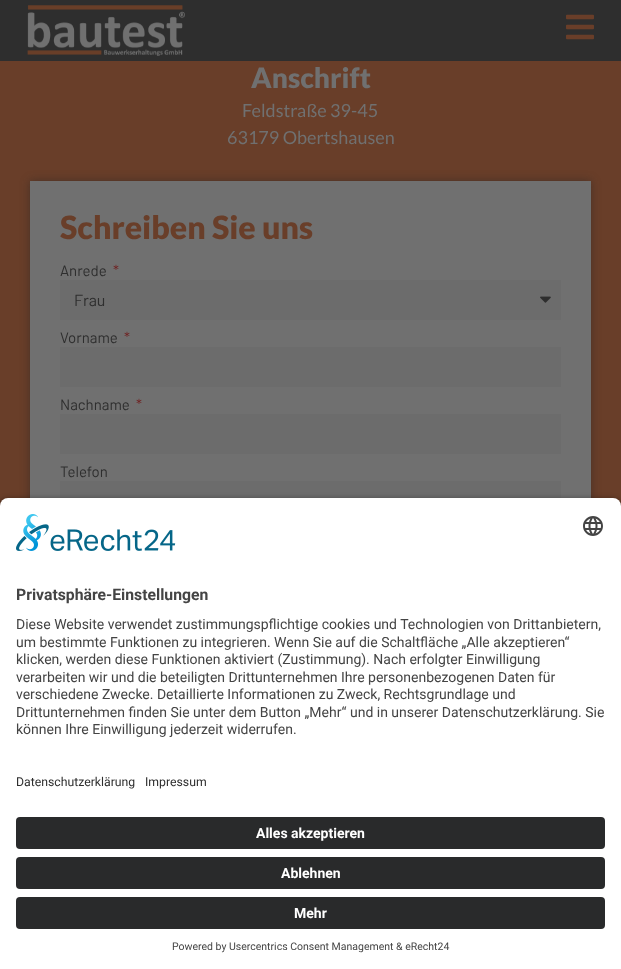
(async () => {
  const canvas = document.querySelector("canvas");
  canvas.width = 621;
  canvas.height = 969;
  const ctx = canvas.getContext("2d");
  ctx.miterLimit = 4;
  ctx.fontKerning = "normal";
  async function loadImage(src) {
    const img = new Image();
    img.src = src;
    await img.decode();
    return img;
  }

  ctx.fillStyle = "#693e29";
  ctx.fillRect(0, 0, 621, 969);
  ctx.fillStyle = "#2e2e2e";
  ctx.fillRect(0, 0, 621, 61);
  ctx.drawImage(await loadImage("img/1.png"), 27, 5, 158, 51);
  ctx.drawImage(await loadImage("img/2.png"), 566, 14, 28, 26);
  ctx.fillStyle = "rgba(36, 36, 36, 0.5)";
  ctx.filter = "blur(5px)";
  ctx.beginPath();
  ctx.rect(30, 181, 561, 757);
  ctx.fill();
  ctx.filter = "none";
  ctx.fillStyle = "#707070";
  ctx.fillRect(30, 181, 561, 317);
  ctx.fillStyle = "#6c6c6c";
  ctx.fillRect(60, 280, 501, 40);
  ctx.drawImage(await loadImage("img/3.png"), 540, 296, 11, 7);
  for (const [x, y, w, h, color] of [
    [60, 347, 501, 40, "#6c6c6c"],
    [60, 414, 501, 40, "#6c6c6c"],
    [60, 481, 501, 17, "#6c6c6c"],
  ]) {
    ctx.fillStyle = color;
    ctx.fillRect(x, y, w, h);
  }
  ctx.fillStyle = "rgba(0, 0, 0, 0.8)";
  ctx.filter = "blur(3.5px)";
  ctx.beginPath();
  ctx.roundRect(0, 501, 621, 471, 8);
  ctx.fill();
  ctx.filter = "none";
  ctx.fillStyle = "#ffffff";
  ctx.beginPath();
  ctx.roundRect(0, 498, 621, 261, [8, 8, 0, 0]);
  ctx.fill();
  ctx.drawImage(await loadImage("img/4.png"), 16, 514, 160, 37);
  ctx.drawImage(await loadImage("img/5.png"), 583, 516, 20, 20);
  ctx.fillRect(0, 759, 621, 210);
  ctx.fillStyle = "#292a2b";
  ctx.beginPath();
  ctx.roundRect(16, 817, 589, 32, 4);
  ctx.fill();
  ctx.beginPath();
  ctx.roundRect(16, 857, 589, 32, 4);
  ctx.fill();
  ctx.beginPath();
  ctx.roundRect(16, 897, 589, 32, 4);
  ctx.fill();
  ctx.font = "900 28px Lato";
  ctx.fillStyle = "#707070";
  ctx.fillText("Anschrift", 251, 88);
  ctx.font = "18px Lato";
  ctx.fillText("Feldstraße 39-45", 242, 117);
  ctx.fillText("63179 Obertshausen", 227, 144);
  ctx.font = "900 32px Lato";
  ctx.fillStyle = "#693e29";
  ctx.fillText("Schreiben Sie uns", 60, 239);
  ctx.font = "15px Barlow";
  ctx.fillStyle = "#2e2e2e";
  ctx.fillText("Anrede", 60, 276);
  ctx.fillStyle = "#702424";
  ctx.fillText("*", 113, 276);
  ctx.font = "16px Barlow";
  ctx.fillStyle = "#2e2e2e";
  ctx.fillText("Frau", 74, 306);
  ctx.font = "15px Barlow";
  ctx.fillText("Vorname", 60, 343);
  ctx.fillStyle = "#702424";
  ctx.fillText("*", 124, 343);
  ctx.fillStyle = "#2e2e2e";
  ctx.fillText("Nachname", 60, 410);
  ctx.fillStyle = "#702424";
  ctx.fillText("*", 136, 410);
  ctx.fillStyle = "#2e2e2e";
  ctx.fillText("Telefon", 60, 477);
  ctx.font = "bold 15.75px Roboto";
  ctx.fillStyle = "#444444";
  ctx.fillText("Privatsphäre-Einstellungen", 16, 600);
  ctx.font = "14px Roboto";
  for (const [text, x, y] of [
    ["Diese Website verwendet zustimmungspflichtige cookies und Technologien von Drittanbietern,", 16, 629],
    ["um bestimmte Funktionen zu integrieren. Wenn Sie auf die Schaltfläche „Alle akzeptieren“", 16, 647],
    ["klicken, werden diese Funktionen aktiviert (Zustimmung). Nach erfolgter Einwilligung", 16, 664],
    ["verarbeiten wir und die beteiligten Drittunternehmen Ihre personenbezogenen Daten für", 16, 682],
    ["verschiedene Zwecke. Detaillierte Informationen zu Zweck, Rechtsgrundlage und", 16, 699],
    ["Drittunternehmen finden Sie unter dem Button „Mehr“ und in unserer Datenschutzerklärung. Sie", 16, 717],
    ["können Ihre Einwilligung jederzeit widerrufen.", 16, 734],
  ]) {
    ctx.fillText(text, x, y);
  }
  ctx.font = "12.25px Roboto";
  ctx.fillStyle = "#2e2e2e";
  ctx.fillText("Datenschutzerklärung", 16, 786);
  ctx.fillText("Impressum", 145, 786);
  ctx.font = "bold 14px Roboto";
  ctx.fillStyle = "#ffffff";
  for (const [text, x, y] of [
    ["Alles akzeptieren", 256, 838],
    ["Ablehnen", 281, 878],
    ["Mehr", 294, 918],
  ]) {
    ctx.fillText(text, x, y);
  }
  ctx.font = "10.5px Roboto";
  ctx.fillStyle = "#444444";
  ctx.fillText("Powered by Usercentrics Consent Management & eRecht24", 172, 950);
})();
